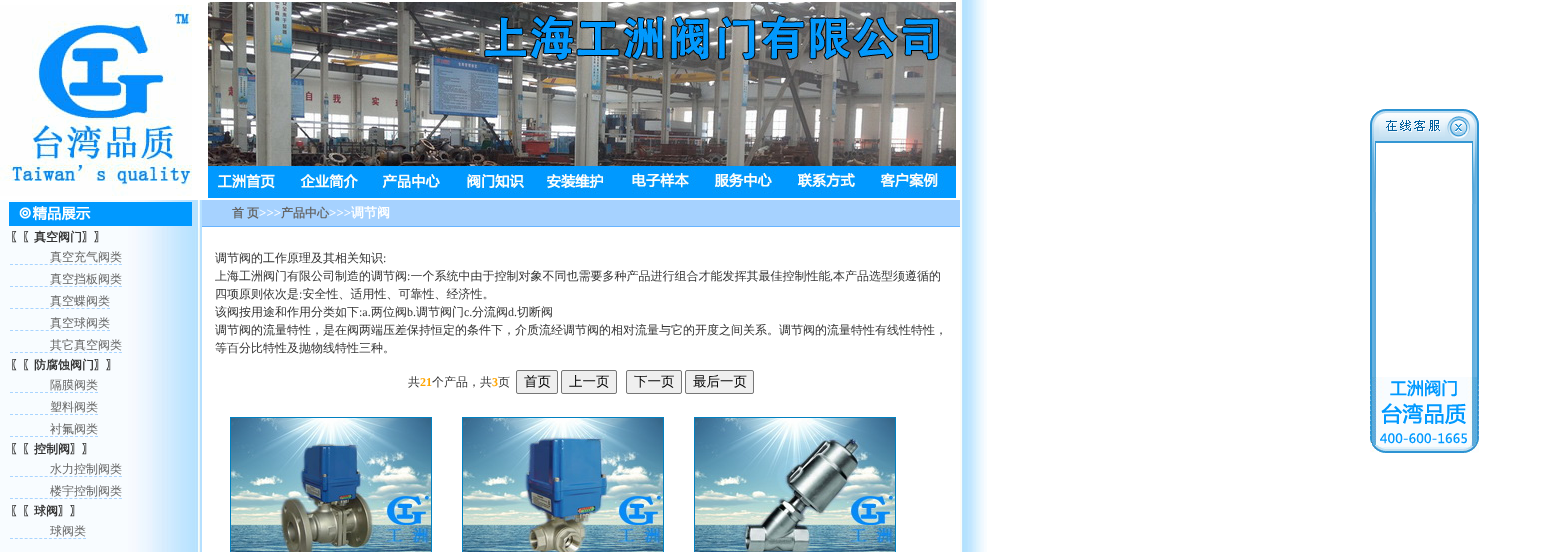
(async () => {
  const canvas = document.querySelector("canvas");
  canvas.width = 1557;
  canvas.height = 552;
  const ctx = canvas.getContext("2d");
  ctx.miterLimit = 4;
  ctx.fontKerning = "normal";
  async function loadImage(src) {
    const img = new Image();
    img.src = src;
    await img.decode();
    return img;
  }
  let path;

  ctx.fillStyle = "#ffffff";
  ctx.fillRect(0, 0, 1557, 552);
  ctx.drawImage(await loadImage("img/1.png"), 0, 5, 192, 191);
  ctx.drawImage(await loadImage("img/2.png"), 208, 2, 748, 196);
  ctx.drawImage(await loadImage("img/3.png"), 960, 0, 27, 200);
  ctx.drawImage(await loadImage("img/4.png"), 1370, 109, 109, 34);
  ctx.drawImage(await loadImage("img/5.png"), 1370, 143, 6, 234);
  ctx.drawImage(await loadImage("img/6.png"), 1472, 143, 7, 234);
  ctx.drawImage(await loadImage("img/7.png"), 1370, 377, 109, 76);
  ctx.drawImage(await loadImage("img/8.png"), 0, 200, 202, 352);
  ctx.drawImage(await loadImage("img/9.png"), 9, 200, 191, 28);
  path = new Path2D("M10 264.5H122");
  ctx.strokeStyle = "#aad5ff";
  ctx.setLineDash([3, 1.95]);
  ctx.stroke(path);
  path = new Path2D("M10 286.5H122");
  ctx.stroke(path);
  path = new Path2D("M10 308.5H110");
  ctx.setLineDash([3, 2.11]);
  ctx.stroke(path);
  path = new Path2D("M10 330.5H110");
  ctx.stroke(path);
  path = new Path2D("M10 352.5H122");
  ctx.setLineDash([3, 1.95]);
  ctx.stroke(path);
  path = new Path2D("M10 392.5H98");
  ctx.setLineDash([3, 2]);
  ctx.stroke(path);
  path = new Path2D("M10 414.5H98");
  ctx.stroke(path);
  path = new Path2D("M10 436.5H98");
  ctx.stroke(path);
  path = new Path2D("M10 476.5H122");
  ctx.setLineDash([3, 1.95]);
  ctx.stroke(path);
  path = new Path2D("M10 498.5H122");
  ctx.stroke(path);
  path = new Path2D("M10 538.5H86");
  ctx.setLineDash([3, 1.87]);
  ctx.stroke(path);
  ctx.fillStyle = "#a6d2ff";
  ctx.fillRect(202, 200, 758, 26);
  ctx.fillStyle = "#68b4ff";
  ctx.fillRect(202, 226, 758, 1);
  ctx.fillStyle = "#efefef";
  ctx.beginPath();
  ctx.roundRect(516.5, 370.5, 41, 23, 1.5);
  ctx.fill();
  ctx.strokeStyle = "#767676";
  ctx.setLineDash([]);
  ctx.stroke();
  ctx.beginPath();
  ctx.roundRect(561.5, 370.5, 55, 23, 1.5);
  ctx.fill();
  ctx.stroke();
  ctx.beginPath();
  ctx.roundRect(626.5, 370.5, 55, 23, 1.5);
  ctx.fill();
  ctx.stroke();
  ctx.beginPath();
  ctx.roundRect(685.5, 370.5, 68, 23, 1.5);
  ctx.fill();
  ctx.stroke();
  ctx.strokeStyle = "#0080c0";
  ctx.strokeRect(230.5, 417.5, 201, 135);
  ctx.drawImage(await loadImage("img/10.png"), 231, 418, 200, 134);
  ctx.strokeRect(462.5, 417.5, 201, 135);
  ctx.drawImage(await loadImage("img/11.png"), 463, 418, 200, 134);
  ctx.strokeRect(694.5, 417.5, 201, 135);
  ctx.drawImage(await loadImage("img/12.png"), 695, 418, 200, 134);
  ctx.drawImage(await loadImage("img/13.png"), 960, 200, 27, 352);
  ctx.font = "bold 12px WenQuanYi Zen Hei";
  ctx.fillStyle = "#333333";
  ctx.fillText("〖〖真空阀门〗〗", 10, 241);
  ctx.font = "500 12px WenQuanYi Zen Hei";
  ctx.fillStyle = "#666666";
  for (const [text, x, y] of [
    ["真空充气阀类", 50, 261],
    ["真空挡板阀类", 50, 283],
    ["真空蝶阀类", 50, 305],
    ["真空球阀类", 50, 327],
    ["其它真空阀类", 50, 349],
  ]) {
    ctx.fillText(text, x, y);
  }
  ctx.font = "bold 12px WenQuanYi Zen Hei";
  ctx.fillStyle = "#333333";
  ctx.fillText("〖〖防腐蚀阀门〗〗", 10, 369);
  ctx.font = "500 12px WenQuanYi Zen Hei";
  ctx.fillStyle = "#666666";
  for (const [text, x, y] of [
    ["隔膜阀类", 50, 389],
    ["塑料阀类", 50, 411],
    ["衬氟阀类", 50, 433],
  ]) {
    ctx.fillText(text, x, y);
  }
  ctx.font = "bold 12px WenQuanYi Zen Hei";
  ctx.fillStyle = "#333333";
  ctx.fillText("〖〖控制阀〗〗", 10, 453);
  ctx.font = "500 12px WenQuanYi Zen Hei";
  ctx.fillStyle = "#666666";
  ctx.fillText("水力控制阀类", 50, 473);
  ctx.fillText("楼宇控制阀类", 50, 495);
  ctx.font = "bold 12px WenQuanYi Zen Hei";
  ctx.fillStyle = "#333333";
  ctx.fillText("〖〖球阀〗〗", 10, 515);
  ctx.font = "500 12px WenQuanYi Zen Hei";
  ctx.fillStyle = "#666666";
  ctx.fillText("球阀类", 50, 535);
  ctx.font = "bold 12px WenQuanYi Zen Hei";
  ctx.fillText("首", 232, 217);
  ctx.fillText("页", 247, 217);
  ctx.font = "bold 13px Liberation Serif";
  ctx.fillStyle = "#ffffff";
  ctx.fillText(">>>", 259, 217);
  ctx.font = "bold 12px WenQuanYi Zen Hei";
  ctx.fillStyle = "#666666";
  ctx.fillText("产品中心", 281, 217);
  ctx.font = "bold 13px Liberation Serif";
  ctx.fillStyle = "#ffffff";
  ctx.fillText(">>>", 329, 217);
  ctx.font = "bold 13px WenQuanYi Zen Hei";
  ctx.fillText("调节阀", 351, 217);
  ctx.font = "500 12px WenQuanYi Zen Hei";
  ctx.fillStyle = "#333333";
  ctx.fillText("调节阀的工作原理及其相关知识", 215, 262);
  ctx.font = "12px Liberation Serif";
  ctx.fillText(":", 383, 262);
  ctx.font = "500 12px WenQuanYi Zen Hei";
  ctx.fillText("上海工洲阀门有限公司制造的调节阀 一个系统中由于控制对象不同也需要多种产品进行组合才能发挥其最佳控制性能", 215, 280);
  ctx.fillText("本产品选型须遵循的", 833, 280);
  ctx.font = "12px Liberation Serif";
  ctx.fillText(":", 407, 280);
  ctx.fillText(",", 830, 280);
  ctx.font = "500 12px WenQuanYi Zen Hei";
  ctx.fillText("四项原则依次是 安全性、适用性、可靠性、经济性。", 215, 298);
  ctx.font = "12px Liberation Serif";
  ctx.fillText(":", 299, 298);
  ctx.font = "500 12px WenQuanYi Zen Hei";
  ctx.fillText("该阀按用途和作用分类如下", 215, 316);
  ctx.font = "12px Liberation Serif";
  ctx.fillText(":a.", 359, 316);
  ctx.font = "500 12px WenQuanYi Zen Hei";
  ctx.fillText("两位阀", 371, 316);
  ctx.font = "12px Liberation Serif";
  ctx.fillText("b.", 407, 316);
  ctx.font = "500 12px WenQuanYi Zen Hei";
  ctx.fillText("调节阀门", 416, 316);
  ctx.font = "12px Liberation Serif";
  ctx.fillText("c.", 464, 316);
  ctx.font = "500 12px WenQuanYi Zen Hei";
  ctx.fillText("分流阀", 472, 316);
  ctx.font = "12px Liberation Serif";
  ctx.fillText("d.", 508, 316);
  ctx.font = "500 12px WenQuanYi Zen Hei";
  for (const [text, x, y] of [
    ["切断阀", 517, 316],
    ["调节阀的流量特性，是在阀两端压差保持恒定的条件下，介质流经调节阀的相对流量与它的开度之间关系。调节阀的流量特性有线性特性，", 215, 334],
    ["等百分比特性及抛物线特性三种。", 215, 352],
    ["共", 408, 386],
  ]) {
    ctx.fillText(text, x, y);
  }
  ctx.font = "bold 12px Liberation Serif";
  ctx.fillStyle = "#ffa500";
  ctx.fillText("21", 420, 386);
  ctx.font = "500 12px WenQuanYi Zen Hei";
  ctx.fillStyle = "#333333";
  ctx.fillText("个产品，共", 432, 386);
  ctx.font = "bold 12px Liberation Serif";
  ctx.fillStyle = "#ffa500";
  ctx.fillText("3", 492, 386);
  ctx.font = "500 12px WenQuanYi Zen Hei";
  ctx.fillStyle = "#333333";
  ctx.fillText("页", 498, 386);
  ctx.font = "500 13.5px WenQuanYi Zen Hei";
  ctx.fillStyle = "#000000";
  for (const [text, x, y] of [
    ["首页", 524, 386],
    ["上一页", 569, 386],
    ["下一页", 634, 386],
    ["最后一页", 693, 386],
  ]) {
    ctx.fillText(text, x, y);
  }
})();
